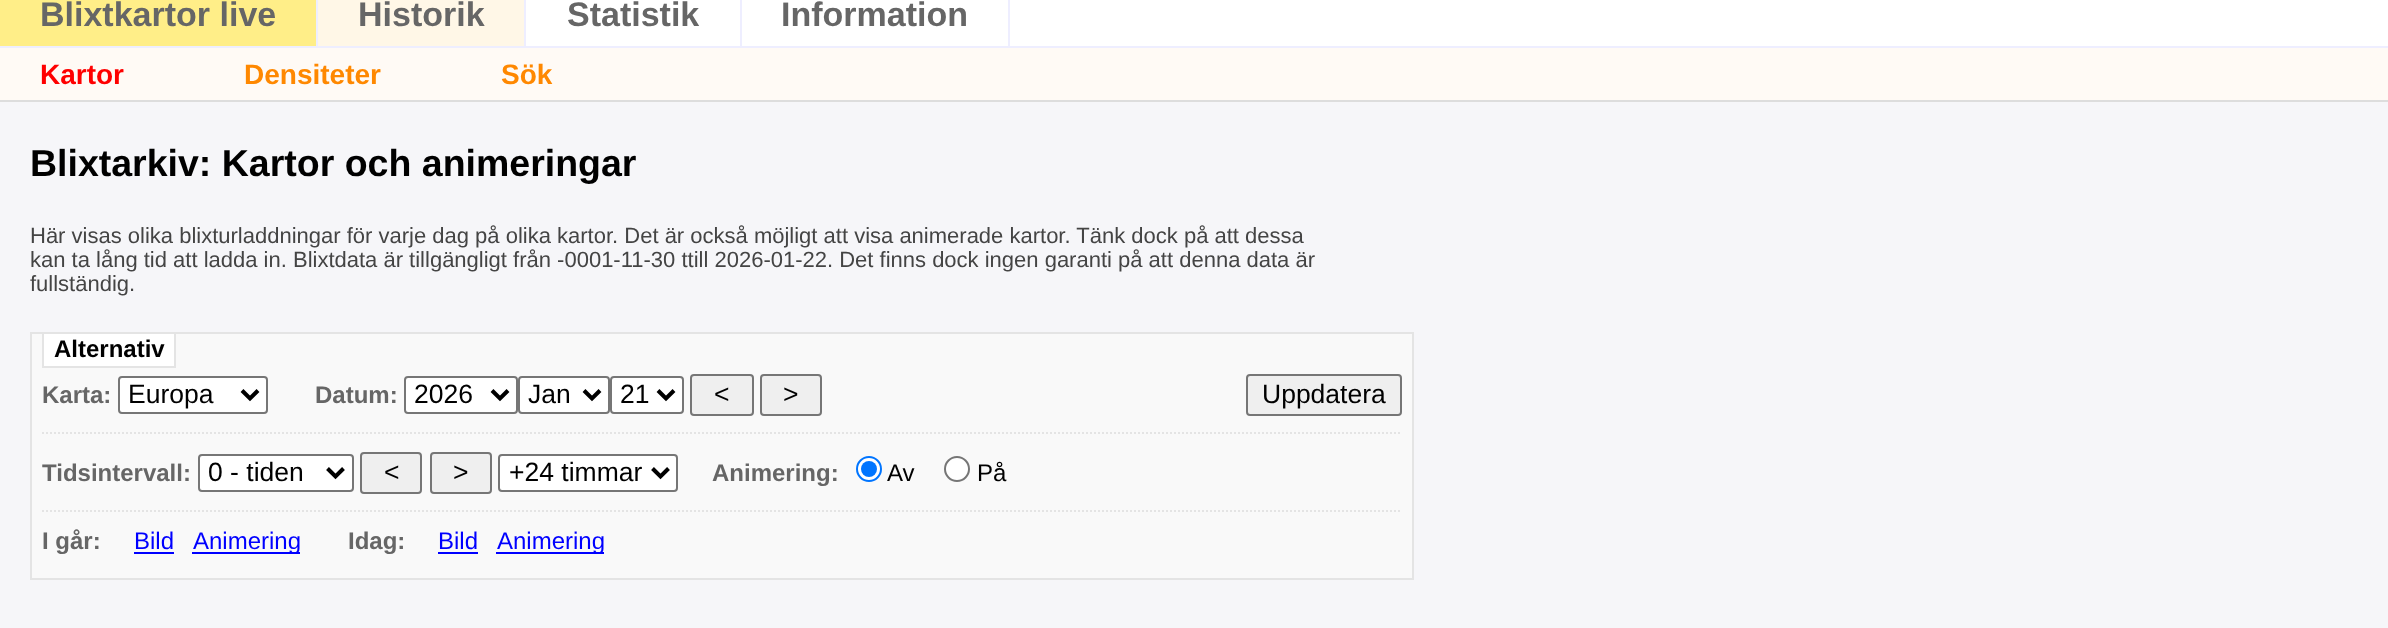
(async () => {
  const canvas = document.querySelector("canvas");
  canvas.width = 2388;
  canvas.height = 628;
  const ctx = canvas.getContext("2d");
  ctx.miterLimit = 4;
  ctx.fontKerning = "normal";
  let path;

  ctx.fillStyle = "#f6f6f9";
  ctx.fillRect(0, 0, 2388, 628);
  for (const [x, y, w, h, color] of [
    [526, 0, 1862, 46, "#ffffff"],
    [0, 46, 2388, 2, "#eeeeff"],
    [316, 0, 2, 46, "#eeeeff"],
    [0, 0, 316, 46, "#ffee88"],
    [524, 0, 2, 46, "#eeeeff"],
    [318, 0, 206, 46, "#fff7e7"],
    [740, 0, 2, 46, "#eeeeff"],
    [1008, 0, 2, 46, "#eeeeff"],
    [0, 48, 2388, 52, "#fffaf5"],
    [0, 100, 2388, 2, "#dddddd"],
  ]) {
    ctx.fillStyle = color;
    ctx.fillRect(x, y, w, h);
  }
  ctx.fillStyle = "#f9f9f9";
  ctx.beginPath();
  ctx.rect(31, 333, 1382, 246);
  ctx.fill();
  ctx.strokeStyle = "#e4e4e4";
  ctx.lineWidth = 2;
  ctx.stroke();
  ctx.fillStyle = "#ffffff";
  ctx.beginPath();
  ctx.rect(43, 333, 132, 34);
  ctx.fill();
  ctx.stroke();
  ctx.beginPath();
  ctx.roundRect(119, 377, 148, 36, 3);
  ctx.fill();
  ctx.strokeStyle = "#767676";
  ctx.stroke();
  path = new Path2D("M242 390.5L250 398.5L258 390.5");
  ctx.strokeStyle = "#000000";
  ctx.lineWidth = 4;
  ctx.stroke(path);
  ctx.beginPath();
  ctx.roundRect(405, 377, 112, 36, 3);
  ctx.fill();
  ctx.strokeStyle = "#767676";
  ctx.lineWidth = 2;
  ctx.stroke();
  path = new Path2D("M492 390.5L500 398.5L508 390.5");
  ctx.strokeStyle = "#000000";
  ctx.lineWidth = 4;
  ctx.stroke(path);
  ctx.beginPath();
  ctx.roundRect(519, 377, 90, 36, 3);
  ctx.fill();
  ctx.strokeStyle = "#767676";
  ctx.lineWidth = 2;
  ctx.stroke();
  path = new Path2D("M584 390.5L592 398.5L600 390.5");
  ctx.strokeStyle = "#000000";
  ctx.lineWidth = 4;
  ctx.stroke(path);
  ctx.beginPath();
  ctx.roundRect(611, 377, 72, 36, 3);
  ctx.fill();
  ctx.strokeStyle = "#767676";
  ctx.lineWidth = 2;
  ctx.stroke();
  path = new Path2D("M658 390.5L666 398.5L674 390.5");
  ctx.strokeStyle = "#000000";
  ctx.lineWidth = 4;
  ctx.stroke(path);
  ctx.fillStyle = "#efefef";
  ctx.beginPath();
  ctx.roundRect(691, 375, 62, 40, 3);
  ctx.fill();
  ctx.strokeStyle = "#767676";
  ctx.lineWidth = 2;
  ctx.stroke();
  ctx.beginPath();
  ctx.roundRect(761, 375, 60, 40, 3);
  ctx.fill();
  ctx.stroke();
  ctx.beginPath();
  ctx.roundRect(1247, 375, 154, 40, 3);
  ctx.fill();
  ctx.stroke();
  path = new Path2D("M42 433H1402");
  ctx.strokeStyle = "#e4e4e4";
  ctx.setLineDash([2, 2]);
  ctx.stroke(path);
  ctx.fillStyle = "#ffffff";
  ctx.beginPath();
  ctx.roundRect(199, 455, 154, 36, 3);
  ctx.fill();
  ctx.strokeStyle = "#767676";
  ctx.setLineDash([]);
  ctx.stroke();
  path = new Path2D("M327.5 468.5L335.5 476.5L343.5 468.5");
  ctx.strokeStyle = "#000000";
  ctx.lineWidth = 4;
  ctx.stroke(path);
  ctx.fillStyle = "#efefef";
  ctx.beginPath();
  ctx.roundRect(361, 453, 60, 40, 3);
  ctx.fill();
  ctx.strokeStyle = "#767676";
  ctx.lineWidth = 2;
  ctx.stroke();
  ctx.beginPath();
  ctx.roundRect(431, 453, 60, 40, 3);
  ctx.fill();
  ctx.stroke();
  ctx.fillStyle = "#ffffff";
  ctx.beginPath();
  ctx.roundRect(499, 455, 178, 36, 3);
  ctx.fill();
  ctx.stroke();
  path = new Path2D("M652.5 468.5L660.5 476.5L668.5 468.5");
  ctx.strokeStyle = "#000000";
  ctx.lineWidth = 4;
  ctx.stroke(path);
  ctx.beginPath();
  ctx.arc(869, 469, 12, 0, Math.PI * 2);
  ctx.fill();
  ctx.strokeStyle = "#0075ff";
  ctx.lineWidth = 2;
  ctx.stroke();
  ctx.fillStyle = "#0075ff";
  ctx.beginPath();
  ctx.arc(869, 469, 8, 0, Math.PI * 2);
  ctx.fill();
  ctx.fillStyle = "#ffffff";
  ctx.beginPath();
  ctx.arc(957, 469, 12, 0, Math.PI * 2);
  ctx.fill();
  ctx.strokeStyle = "#767676";
  ctx.stroke();
  path = new Path2D("M42 511H1402");
  ctx.strokeStyle = "#e4e4e4";
  ctx.setLineDash([2, 2]);
  ctx.stroke(path);
  for (const [x, y, w, h, color] of [
    [134, 552, 40, 2, "#0000ff"],
    [192, 552, 108, 2, "#0000ff"],
    [438, 552, 40, 2, "#0000ff"],
    [496, 552, 108, 2, "#0000ff"],
  ]) {
    ctx.fillStyle = color;
    ctx.fillRect(x, y, w, h);
  }
  ctx.font = "bold 34px Liberation Sans";
  ctx.fillStyle = "#666666";
  for (const [text, x, y] of [
    ["Blixtkartor live", 40, 26],
    ["Historik", 358, 26],
    ["Statistik", 567, 26],
    ["Information", 781, 26],
  ]) {
    ctx.fillText(text, x, y);
  }
  ctx.font = "bold 28px Liberation Sans";
  ctx.fillStyle = "#ff0000";
  ctx.fillText("Kartor", 40, 84);
  ctx.fillStyle = "#ff8800";
  ctx.fillText("Densiteter", 244, 84);
  ctx.fillText("Sök", 501, 84);
  ctx.font = "bold 37.5px Liberation Sans";
  ctx.fillStyle = "#000000";
  ctx.fillText("Blixtarkiv: Kartor och animeringar", 30, 176);
  ctx.font = "22px Liberation Sans";
  ctx.fillStyle = "#444444";
  for (const [text, x, y] of [
    ["Här visas olika blixturladdningar för varje dag på olika kartor. Det är också möjligt att visa animerade kartor. Tänk dock på att dessa", 30, 243],
    ["kan ta lång tid att ladda in. Blixtdata är tillgängligt från -0001-11-30 ttill 2026-01-22. Det finns dock ingen garanti på att denna data är", 30, 267],
    ["fullständig.", 30, 291],
  ]) {
    ctx.fillText(text, x, y);
  }
  ctx.font = "bold 24px Liberation Sans";
  ctx.fillStyle = "#000000";
  ctx.fillText("Alternativ", 54, 357);
  ctx.fillStyle = "#666666";
  ctx.fillText("Karta:", 42, 403);
  ctx.font = "26.5px Liberation Sans";
  ctx.fillStyle = "#000000";
  ctx.fillText("Europa", 128, 403);
  ctx.font = "bold 24px Liberation Sans";
  ctx.fillStyle = "#666666";
  ctx.fillText("Datum:", 315, 403);
  ctx.font = "26.5px Liberation Sans";
  ctx.fillStyle = "#000000";
  for (const [text, x, y] of [
    ["2026", 414, 403],
    ["Jan", 528, 403],
    ["21", 620, 403],
    ["<", 714, 403],
    [">", 783, 403],
    ["Uppdatera", 1262, 403],
  ]) {
    ctx.fillText(text, x, y);
  }
  ctx.font = "bold 24px Liberation Sans";
  ctx.fillStyle = "#666666";
  ctx.fillText("Tidsintervall:", 42, 481);
  ctx.font = "26.5px Liberation Sans";
  ctx.fillStyle = "#000000";
  for (const [text, x, y] of [
    ["0 - tiden", 208, 481],
    ["<", 384, 481],
    [">", 453, 481],
    ["+24 timmar", 509, 481],
  ]) {
    ctx.fillText(text, x, y);
  }
  ctx.font = "bold 24px Liberation Sans";
  ctx.fillStyle = "#666666";
  ctx.fillText("Animering:", 712, 481);
  ctx.font = "24px Liberation Sans";
  ctx.fillStyle = "#000000";
  ctx.fillText("Av", 887, 481);
  ctx.fillText("På", 977, 481);
  ctx.font = "bold 24px Liberation Sans";
  ctx.fillStyle = "#666666";
  ctx.fillText("I går:", 42, 549);
  ctx.font = "24px Liberation Sans";
  ctx.fillStyle = "#0000ff";
  ctx.fillText("Bild", 134, 549);
  ctx.fillText("Animering", 193, 549);
  ctx.font = "bold 24px Liberation Sans";
  ctx.fillStyle = "#666666";
  ctx.fillText("Idag:", 348, 549);
  ctx.font = "24px Liberation Sans";
  ctx.fillStyle = "#0000ff";
  ctx.fillText("Bild", 438, 549);
  ctx.fillText("Animering", 497, 549);
})();
